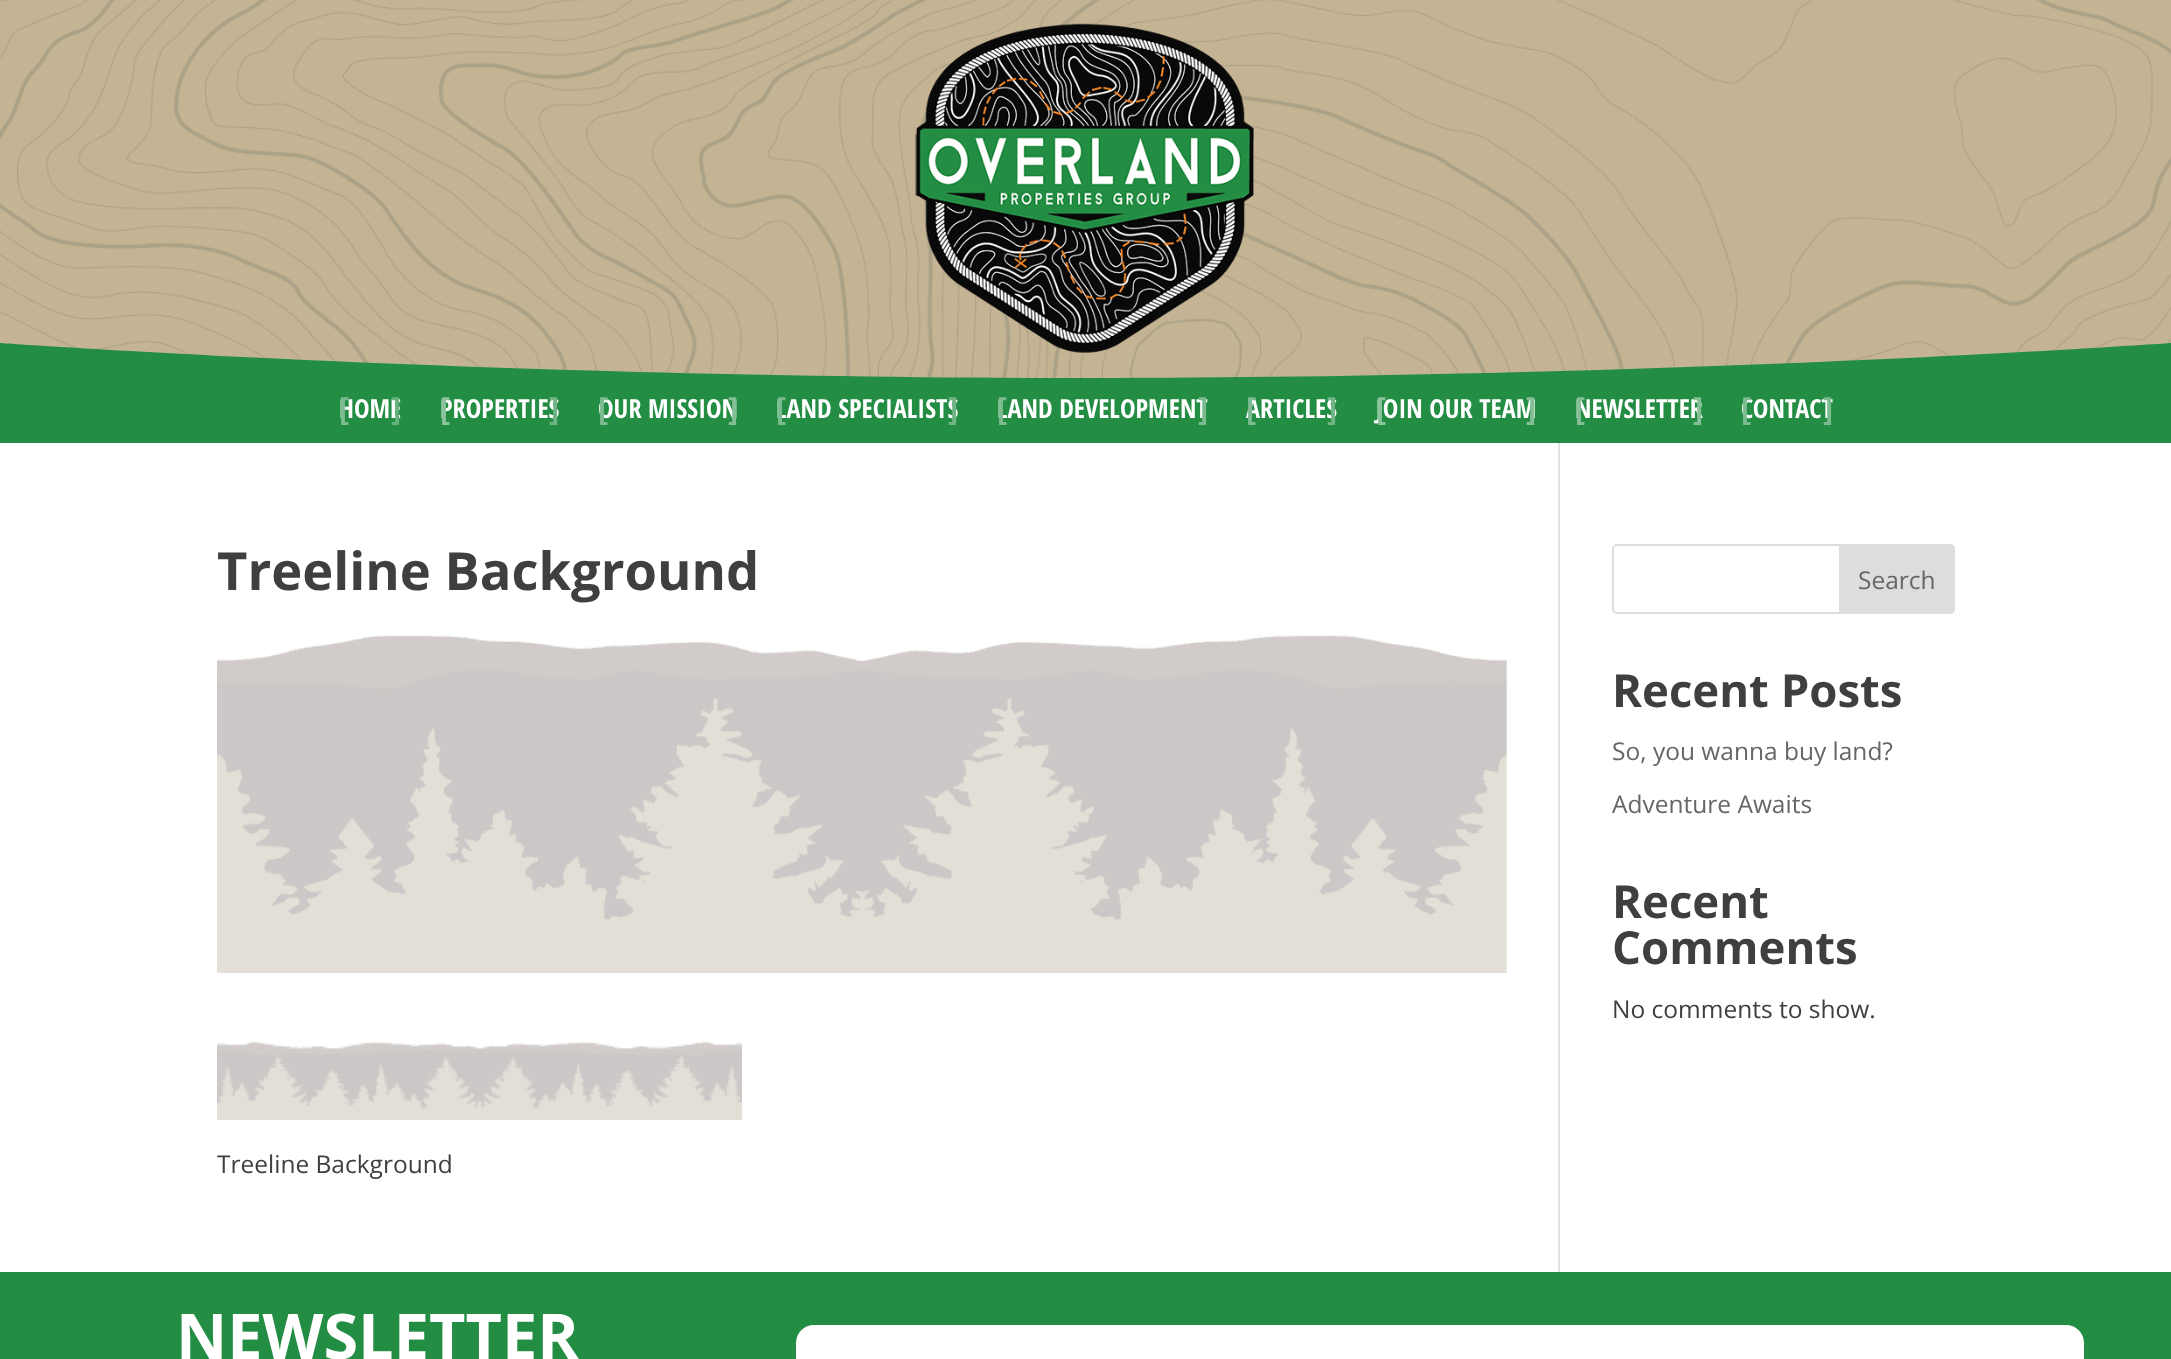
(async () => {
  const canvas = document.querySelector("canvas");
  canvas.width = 2171;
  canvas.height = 1359;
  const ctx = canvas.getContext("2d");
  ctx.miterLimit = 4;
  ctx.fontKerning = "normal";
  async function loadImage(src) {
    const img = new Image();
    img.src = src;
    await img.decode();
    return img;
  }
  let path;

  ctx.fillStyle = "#ffffff";
  ctx.fillRect(0, 0, 2171, 1359);
  ctx.fillStyle = "#c5b494";
  ctx.fillRect(0, 0, 2171, 378);
  ctx.drawImage(await loadImage("img/1.png"), 0, 0, 2171, 378);
  ctx.fillStyle = "#238d44";
  path = new Path2D("M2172 378V343C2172 343 1686 378 1086 378C486 378 0 343 0 343V378Z");
  ctx.fill(path);
  ctx.drawImage(await loadImage("img/2.png"), 915, 23, 339, 330);
  ctx.fillRect(0, 378, 2171, 65);
  ctx.fillStyle = "#e2e2e2";
  ctx.fillRect(1558, 443, 2, 829);
  ctx.drawImage(await loadImage("img/3.png"), 217, 635, 1290, 338);
  ctx.drawImage(await loadImage("img/4.png"), 217, 1041, 525, 79);
  ctx.beginPath();
  ctx.roundRect(1613, 545, 341, 68, 4);
  ctx.strokeStyle = "#dddddd";
  ctx.lineWidth = 2;
  ctx.stroke();
  ctx.fillStyle = "#dddddd";
  ctx.beginPath();
  ctx.roundRect(1840, 545, 114, 68, [0, 4, 4, 0]);
  ctx.fill();
  ctx.stroke();
  ctx.fillStyle = "#238d44";
  ctx.fillRect(0, 1272, 2171, 87);
  ctx.fillStyle = "#ffffff";
  ctx.beginPath();
  ctx.roundRect(796, 1325, 1288, 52, 18);
  ctx.fill();
  ctx.font = "bold 26.25px Open Sans Condensed";
  ctx.fillText("HOME", 339, 418);
  ctx.font = "bold 32px Open Sans Condensed";
  ctx.fillStyle = "#66b07d";
  ctx.fillText("]", 391, 420);
  ctx.fillStyle = "#7cbb90";
  ctx.fillText("[", 339, 420);
  ctx.font = "bold 26.25px Open Sans Condensed";
  ctx.fillStyle = "#ffffff";
  ctx.fillText("PROPERTIES", 440, 418);
  ctx.font = "bold 32px Open Sans Condensed";
  ctx.fillStyle = "#71b586";
  ctx.fillText("]", 549, 420);
  ctx.fillStyle = "#8ac29c";
  ctx.fillText("[", 440, 420);
  ctx.font = "bold 26.25px Open Sans Condensed";
  ctx.fillStyle = "#ffffff";
  ctx.fillText("OUR MISSION", 598, 418);
  ctx.font = "bold 32px Open Sans Condensed";
  ctx.fillStyle = "#84bf96";
  ctx.fillText("]", 728, 420);
  ctx.fillStyle = "#7cbb90";
  ctx.fillText("[", 598, 420);
  ctx.font = "bold 26.25px Open Sans Condensed";
  ctx.fillStyle = "#ffffff";
  ctx.fillText("LAND SPECIALISTS", 776, 418);
  ctx.font = "bold 32px Open Sans Condensed";
  ctx.fillStyle = "#71b586";
  ctx.fillText("]", 948, 420);
  ctx.fillStyle = "#7cbb90";
  ctx.fillText("[", 776, 420);
  ctx.font = "bold 26.25px Open Sans Condensed";
  ctx.fillStyle = "#ffffff";
  ctx.fillText("LAND DEVELOPMENT", 997, 418);
  ctx.font = "bold 32px Open Sans Condensed";
  ctx.fillStyle = "#7cbb90";
  ctx.fillText("]", 1198, 420);
  ctx.fillText("[", 997, 420);
  ctx.font = "bold 26.25px Open Sans Condensed";
  ctx.fillStyle = "#ffffff";
  ctx.fillText("ARTICLES", 1246, 418);
  ctx.font = "bold 32px Open Sans Condensed";
  ctx.fillStyle = "#71b586";
  ctx.fillText("]", 1327, 420);
  ctx.fillStyle = "#7cbb90";
  ctx.fillText("[", 1246, 420);
  ctx.font = "bold 26.25px Open Sans Condensed";
  ctx.fillStyle = "#ffffff";
  ctx.fillText("JOIN OUR TEAM", 1376, 418);
  ctx.font = "bold 32px Open Sans Condensed";
  ctx.fillStyle = "#84bf96";
  ctx.fillText("]", 1526, 420);
  ctx.fillStyle = "#8ac29c";
  ctx.fillText("[", 1376, 420);
  ctx.font = "bold 26.25px Open Sans Condensed";
  ctx.fillStyle = "#ffffff";
  ctx.fillText("NEWSLETTER", 1575, 418);
  ctx.font = "bold 32px Open Sans Condensed";
  ctx.fillStyle = "#84bf96";
  ctx.fillText("]", 1693, 420);
  ctx.fillText("[", 1575, 420);
  ctx.font = "bold 26.25px Open Sans Condensed";
  ctx.fillStyle = "#ffffff";
  ctx.fillText("CONTACT", 1741, 418);
  ctx.font = "bold 32px Open Sans Condensed";
  ctx.fillStyle = "#7cbb90";
  ctx.fillText("]", 1823, 420);
  ctx.fillText("[", 1741, 420);
  ctx.font = "bold 52.5px Open Sans";
  ctx.fillStyle = "#3f3f3f";
  ctx.fillText("Treeline Background", 217, 590);
  ctx.font = "24.5px Open Sans";
  ctx.fillText("Treeline Background", 217, 1173);
  ctx.fillStyle = "#666666";
  ctx.fillText("Search", 1858, 589);
  ctx.font = "bold 45.5px Open Sans";
  ctx.fillStyle = "#3f3f3f";
  ctx.fillText("Recent Posts", 1612, 707);
  ctx.font = "24.5px Open Sans";
  ctx.fillStyle = "#666666";
  ctx.fillText("So, you wanna buy land?", 1612, 760);
  ctx.fillText("Adventure Awaits", 1612, 813);
  ctx.font = "bold 45.5px Open Sans";
  ctx.fillStyle = "#3f3f3f";
  ctx.fillText("Recent", 1612, 918);
  ctx.fillText("Comments", 1612, 964);
  ctx.font = "24.5px Open Sans";
  ctx.fillText("No comments to show.", 1612, 1018);
  ctx.font = "bold 63px Open Sans";
  ctx.fillStyle = "#ffffff";
  ctx.fillText("NEWSLETTER", 176, 1359);
})();
